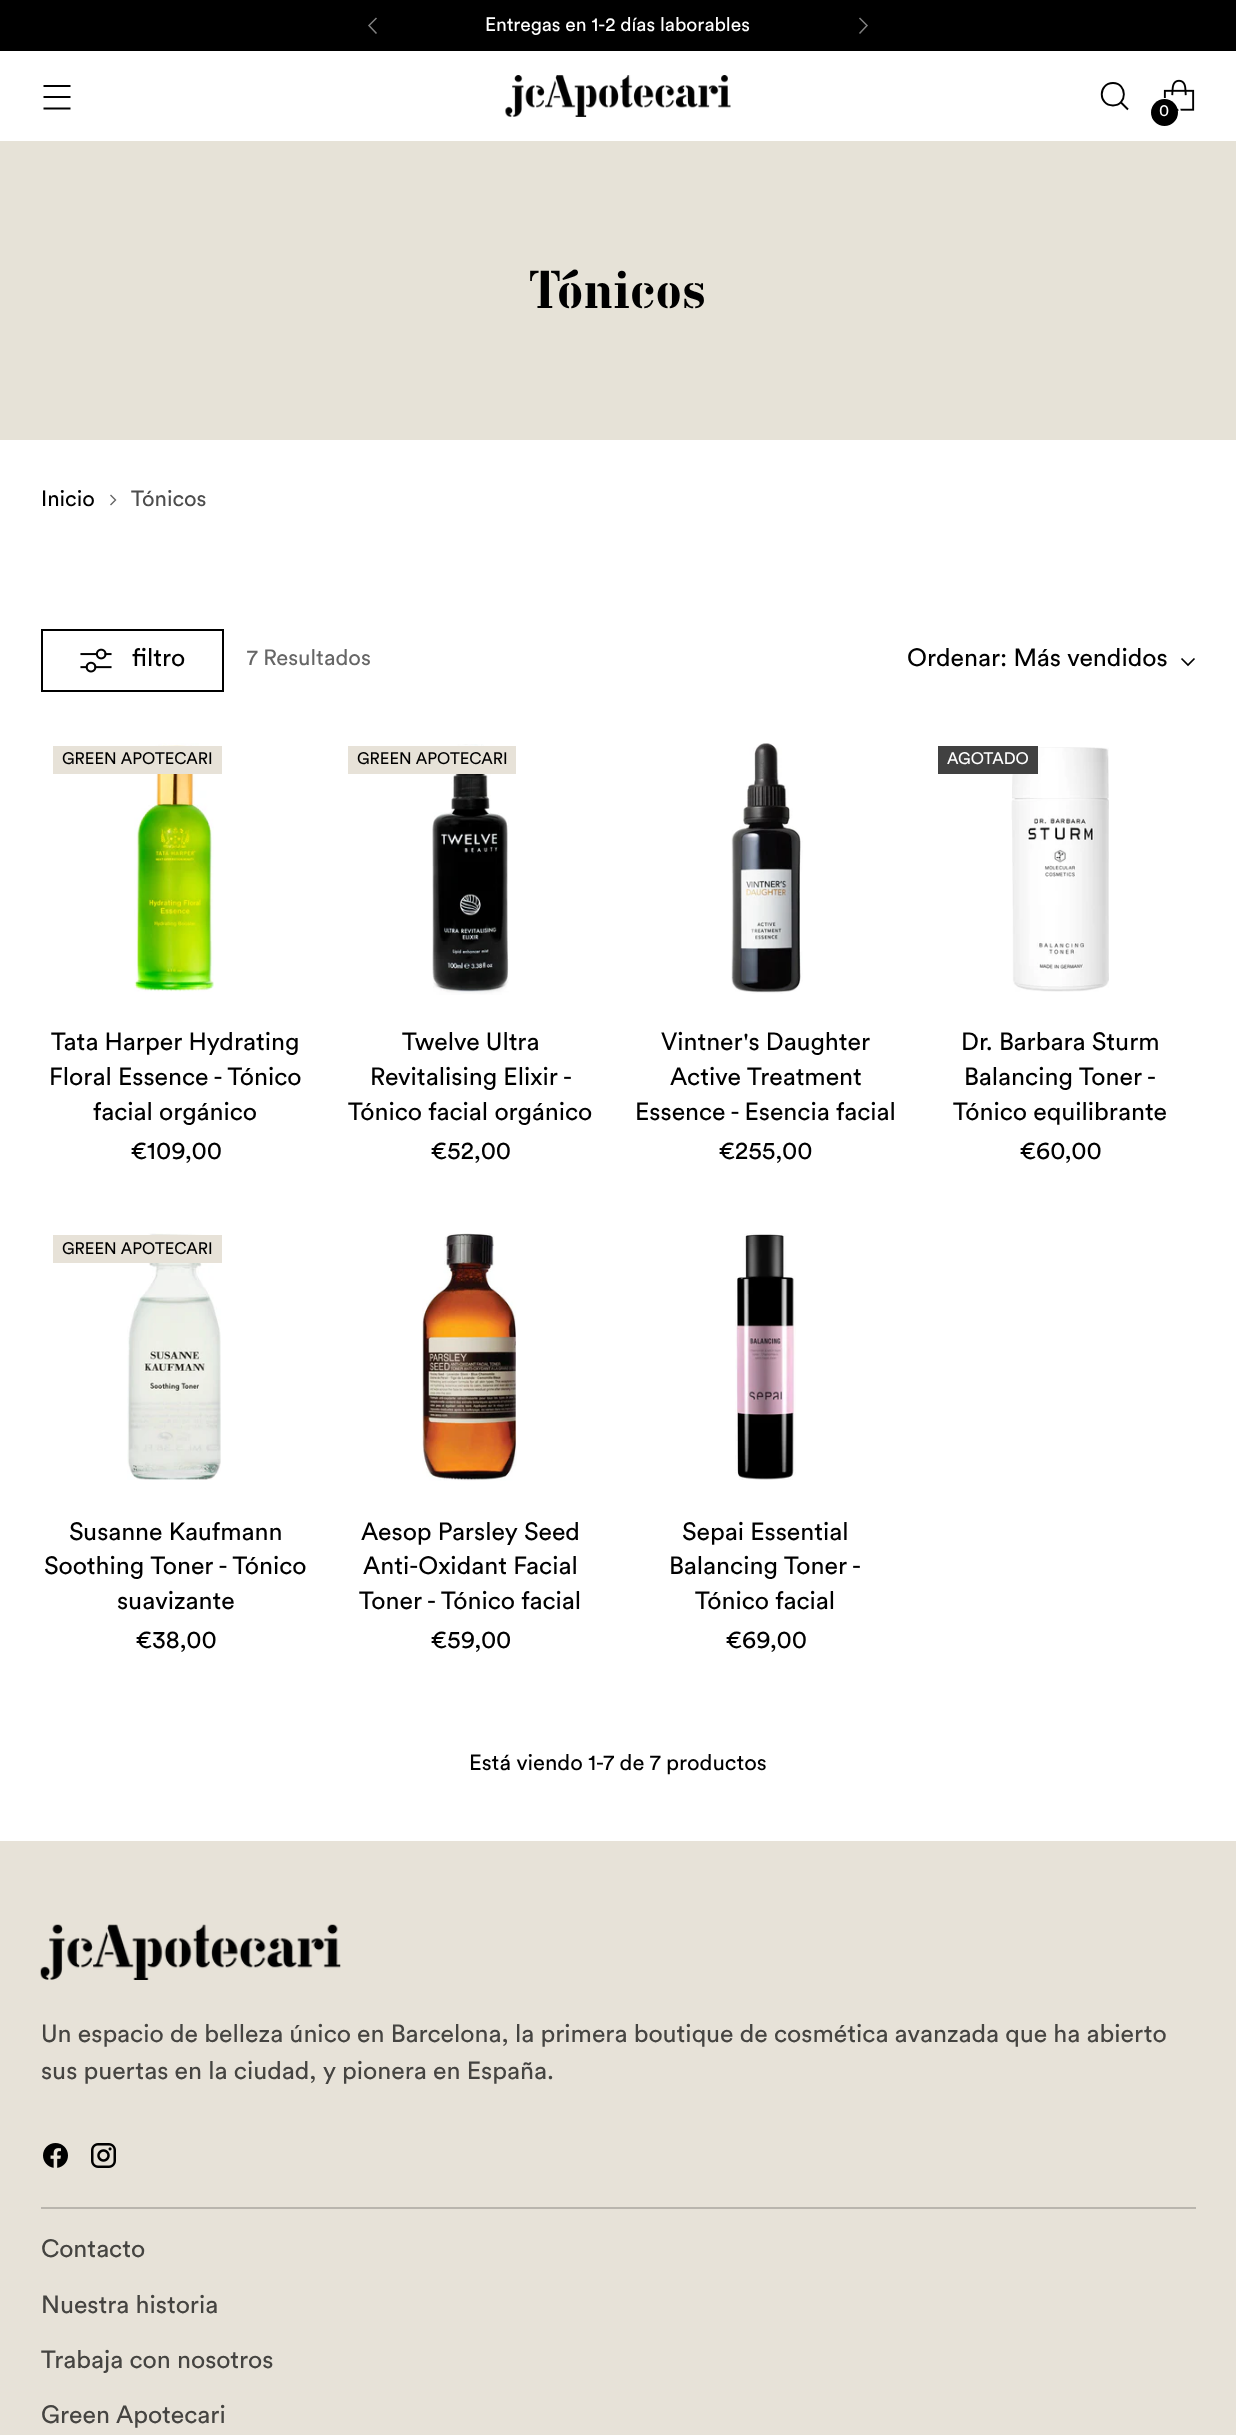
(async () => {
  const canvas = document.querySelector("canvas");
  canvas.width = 1236;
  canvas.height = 2435;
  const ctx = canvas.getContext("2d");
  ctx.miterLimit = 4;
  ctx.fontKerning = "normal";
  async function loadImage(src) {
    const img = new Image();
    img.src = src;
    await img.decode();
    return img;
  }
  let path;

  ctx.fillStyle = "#ffffff";
  ctx.fillRect(0, 0, 1236, 2435);
  ctx.fillStyle = "#000000";
  ctx.fillRect(0, 0, 1236, 51);
  path = new Path2D("M376.5 18L369 25.5L376.5 33.5");
  ctx.strokeStyle = "#808080";
  ctx.lineWidth = 1.5;
  ctx.stroke(path);
  path = new Path2D("M859.5 33.5L867 25.5L859.5 18");
  ctx.stroke(path);
  path = new Path2D("M43.5 97H70.5M43.5 86H70.5M43.5 108.5H70.5");
  ctx.strokeStyle = "#000000";
  ctx.lineWidth = 1.9;
  ctx.stroke(path);
  ctx.drawImage(await loadImage("img/1.png"), 505, 75, 226, 42);
  path = new Path2D("M1113 105.5C1127.5 105.5 1127.5 83 1113 83C1098 83 1098 105.5 1113 105.5Z");
  ctx.lineCap = "round";
  ctx.stroke(path);
  path = new Path2D("M1121 102.5L1128 109.5");
  ctx.lineCap = "butt";
  ctx.stroke(path);
  ctx.drawImage(await loadImage("img/2.png"), 1163, 79, 32, 32);
  ctx.beginPath();
  ctx.roundRect(1150, 99, 30, 29, 14.5);
  ctx.strokeStyle = "#ffffff";
  ctx.lineWidth = 2;
  ctx.stroke();
  ctx.beginPath();
  ctx.arc(1164.5, 112.5, 13.5, 0, Math.PI * 2);
  ctx.fill();
  ctx.fillStyle = "#e6e2d7";
  ctx.fillRect(0, 141, 1236, 299);
  path = new Path2D("M110.5 505L115.5 500L110.5 495");
  ctx.strokeStyle = "#666666";
  ctx.lineWidth = 1.4;
  ctx.stroke(path);
  ctx.strokeStyle = "#000000";
  ctx.lineWidth = 2;
  ctx.strokeRect(42, 630, 181, 61);
  ctx.drawImage(await loadImage("img/3.png"), 80, 648, 32, 25);
  path = new Path2D("M1181.5 658.5L1188 665L1194.5 658.5");
  ctx.lineWidth = 1.7;
  ctx.stroke(path);
  ctx.drawImage(await loadImage("img/4.png"), 134, 743, 80, 249);
  ctx.fillStyle = "#e7e2d8";
  ctx.fillRect(53, 746, 169, 28);
  ctx.drawImage(await loadImage("img/5.png"), 432, 744, 77, 251);
  ctx.fillRect(348, 746, 168, 28);
  ctx.drawImage(await loadImage("img/6.png"), 731, 743, 72, 251);
  ctx.drawImage(await loadImage("img/7.png"), 1011, 747, 98, 245);
  ctx.fillStyle = "#414141";
  ctx.fillRect(938, 746, 100, 28);
  ctx.drawImage(await loadImage("img/8.png"), 127, 1233, 94, 247);
  ctx.fillStyle = "#e7e2d8";
  ctx.fillRect(53, 1235, 169, 28);
  ctx.drawImage(await loadImage("img/9.png"), 422, 1233, 95, 248);
  ctx.drawImage(await loadImage("img/10.png"), 735, 1233, 61, 247);
  ctx.fillRect(0, 1841, 1236, 594);
  ctx.fillStyle = "#b9b5ad";
  ctx.fillRect(41, 2207, 1155, 2);
  ctx.drawImage(await loadImage("img/11.png"), 40, 1924, 301, 56);
  ctx.drawImage(await loadImage("img/12.png"), 43, 2143, 25, 25);
  ctx.drawImage(await loadImage("img/13.png"), 91, 2143, 25, 25);
  ctx.font = "19.25px Circular";
  ctx.fillStyle = "#ffffff";
  ctx.fillText("Entregas en 1-2 días laborables", 485, 31);
  ctx.font = "16.5px Circular";
  ctx.fillText("0", 1159, 116);
  ctx.font = "52.5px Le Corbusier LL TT";
  ctx.fillStyle = "#000000";
  ctx.fillText("Tónicos", 529, 308);
  ctx.font = "22px Circular";
  ctx.fillText("Inicio", 41, 506);
  ctx.fillStyle = "#4d4d4d";
  ctx.fillText("Tónicos", 131, 506);
  ctx.font = "24.85px Circular";
  ctx.fillStyle = "#000000";
  ctx.fillText("filtro", 132, 666);
  ctx.font = "22px Circular";
  ctx.fillStyle = "#666666";
  ctx.fillText("7 Resultados", 247, 665);
  ctx.font = "24.85px Circular";
  ctx.fillStyle = "#000000";
  ctx.fillText("Ordenar: Más vendidos", 907, 666);
  ctx.font = "16.5px Circular";
  ctx.fillText("GREEN APOTECARI", 62, 764);
  ctx.font = "24.85px Circular";
  for (const [text, x, y] of [
    ["Tata Harper Hydrating", 51, 1050],
    ["Floral Essence - Tónico", 49, 1085],
    ["facial orgánico", 93, 1120],
    ["€109,00", 130, 1159],
  ]) {
    ctx.fillText(text, x, y);
  }
  ctx.font = "16.5px Circular";
  ctx.fillText("GREEN APOTECARI", 357, 764);
  ctx.font = "24.85px Circular";
  for (const [text, x, y] of [
    ["Twelve Ultra", 402, 1050],
    ["Revitalising Elixir -", 370, 1085],
    ["Tónico facial orgánico", 348, 1120],
    ["€52,00", 430, 1159],
    ["Vintner's Daughter", 661, 1050],
    ["Active Treatment", 670, 1085],
    ["Essence - Esencia facial", 635, 1120],
    ["€255,00", 718, 1159],
  ]) {
    ctx.fillText(text, x, y);
  }
  ctx.font = "16.5px Circular";
  ctx.fillStyle = "#ffffff";
  ctx.fillText("AGOTADO", 947, 764);
  ctx.font = "24.85px Circular";
  ctx.fillStyle = "#000000";
  for (const [text, x, y] of [
    ["Dr. Barbara Sturm", 961, 1050],
    ["Balancing Toner -", 964, 1085],
    ["Tónico equilibrante", 953, 1120],
    ["€60,00", 1019, 1159],
  ]) {
    ctx.fillText(text, x, y);
  }
  ctx.font = "16.5px Circular";
  ctx.fillText("GREEN APOTECARI", 62, 1254);
  ctx.font = "24.85px Circular";
  for (const [text, x, y] of [
    ["Susanne Kaufmann", 69, 1540],
    ["Soothing Toner - Tónico", 44, 1574],
    ["suavizante", 117, 1609],
    ["€38,00", 135, 1648],
    ["Aesop Parsley Seed", 361, 1540],
    ["Anti-Oxidant Facial", 363, 1574],
    ["Toner - Tónico facial", 359, 1609],
    ["€59,00", 430, 1648],
    ["Sepai Essential", 682, 1540],
    ["Balancing Toner -", 669, 1574],
    ["Tónico facial", 695, 1609],
    ["€69,00", 725, 1648],
  ]) {
    ctx.fillText(text, x, y);
  }
  ctx.font = "22px Circular";
  ctx.fillText("Está viendo 1-7 de 7 productos", 469, 1770);
  ctx.font = "24.85px Circular";
  ctx.fillStyle = "#454441";
  for (const [text, x, y] of [
    ["Un espacio de belleza único en Barcelona, la primera boutique de cosmética avanzada que ha abierto", 41, 2042],
    ["sus puertas en la ciudad, y pionera en España.", 41, 2079],
    ["Contacto", 41, 2257],
    ["Nuestra historia", 41, 2313],
    ["Trabaja con nosotros", 41, 2368],
    ["Green Apotecari", 41, 2423],
  ]) {
    ctx.fillText(text, x, y);
  }
})();
